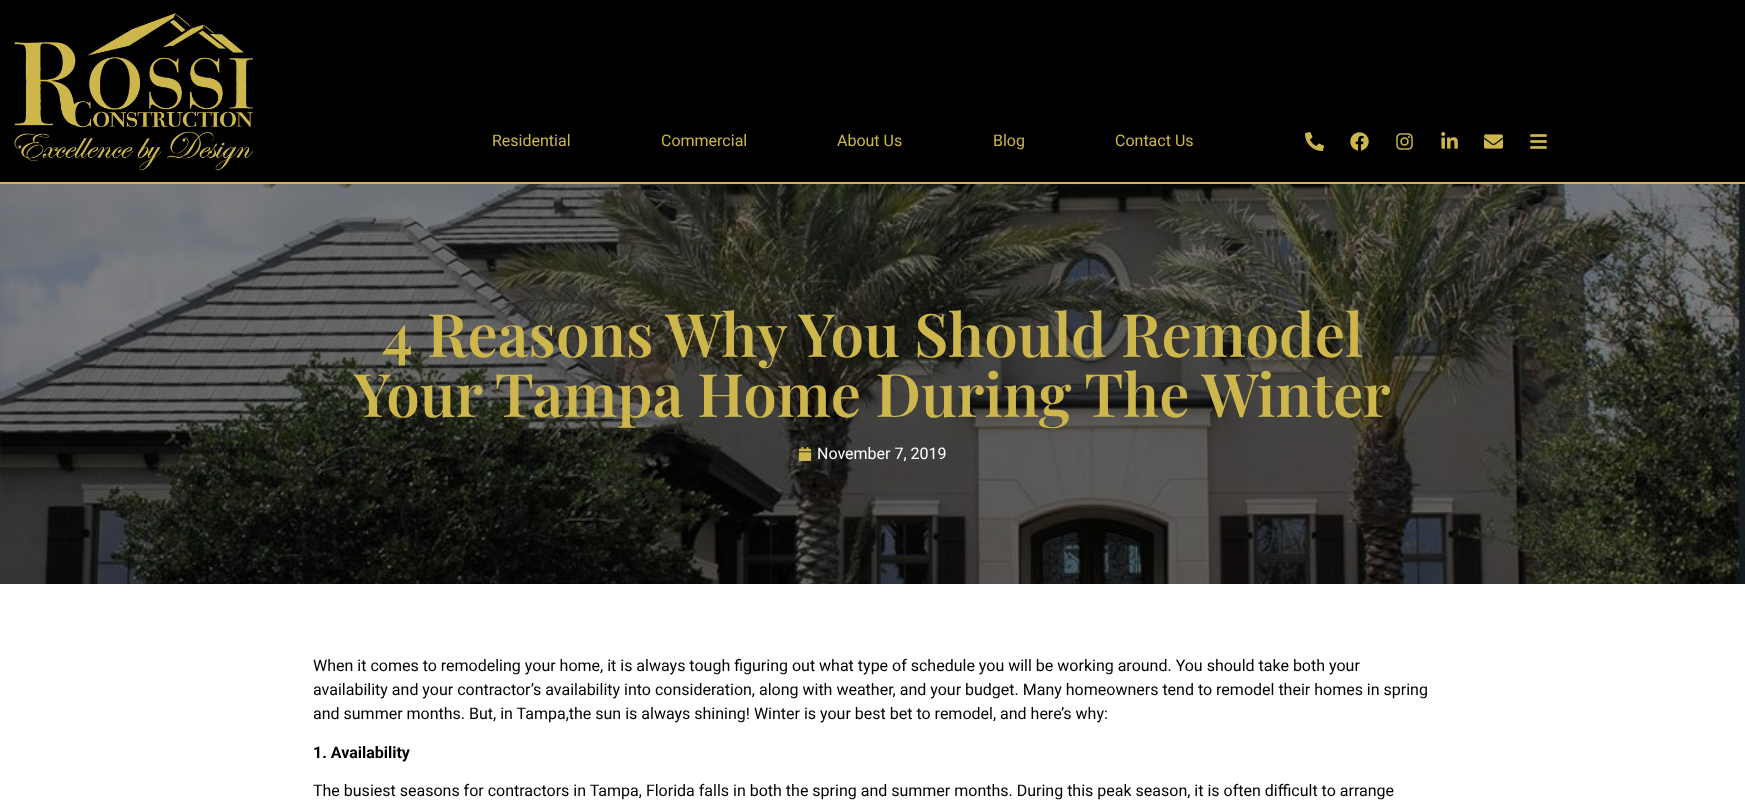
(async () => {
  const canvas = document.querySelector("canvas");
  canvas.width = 1745;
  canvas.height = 800;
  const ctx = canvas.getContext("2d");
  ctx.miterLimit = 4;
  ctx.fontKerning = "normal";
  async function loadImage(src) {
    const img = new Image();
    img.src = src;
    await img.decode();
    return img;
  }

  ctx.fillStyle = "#ffffff";
  ctx.fillRect(0, 0, 1745, 800);
  ctx.fillStyle = "#000000";
  ctx.fillRect(0, 0, 1745, 182);
  ctx.fillStyle = "#cdb64c";
  ctx.fillRect(0, 182, 1745, 2);
  ctx.drawImage(await loadImage("img/1.png"), 14, 13, 239, 158);
  ctx.drawImage(await loadImage("img/2.png"), 1305, 132, 19, 19);
  ctx.drawImage(await loadImage("img/3.png"), 1350, 132, 19, 19);
  ctx.drawImage(await loadImage("img/4.png"), 1396, 133, 17, 17);
  ctx.drawImage(await loadImage("img/5.png"), 1441, 132, 17, 17);
  ctx.drawImage(await loadImage("img/6.png"), 1484, 134, 19, 15);
  ctx.drawImage(await loadImage("img/7.png"), 1530, 134, 17, 15);
  ctx.drawImage(await loadImage("img/8.png"), 0, 184, 1745, 400);
  ctx.drawImage(await loadImage("img/9.png"), 798, 447, 14, 14);
  ctx.font = "16px Roboto";
  for (const [text, x, y] of [
    ["Residential", 492, 146],
    ["Commercial", 661, 146],
    ["About Us", 837, 146],
    ["Blog", 993, 146],
    ["Contact Us", 1115, 146],
  ]) {
    ctx.fillText(text, x, y);
  }
  ctx.font = "600 60px Playfair Display";
  ctx.fillText("4 Reasons Why You Should Remodel", 382, 357);
  ctx.fillText("Your Tampa Home During The Winter", 354, 417);
  ctx.font = "16px Roboto";
  ctx.fillStyle = "#ffffff";
  ctx.fillText("November 7, 2019", 817, 459);
  ctx.fillStyle = "#000000";
  for (const [text, x, y] of [
    ["When it comes to remodeling your home, it is always tough figuring out what type of schedule you will be working around. You should take both your", 313, 671],
    ["availability and your contractor’s availability into consideration, along with weather, and your budget. Many homeowners tend to remodel their homes in spring", 313, 695],
    ["and summer months. But, in Tampa,the sun is always shining! Winter is your best bet to remodel, and here’s why:", 313, 719],
  ]) {
    ctx.fillText(text, x, y);
  }
  ctx.font = "bold 16px Roboto";
  ctx.fillText("1. Availability", 313, 758);
  ctx.font = "16px Roboto";
  ctx.fillText("The busiest seasons for contractors in Tampa, Florida falls in both the spring and summer months. During this peak season, it is often difficult to arrange", 313, 796);
})();
